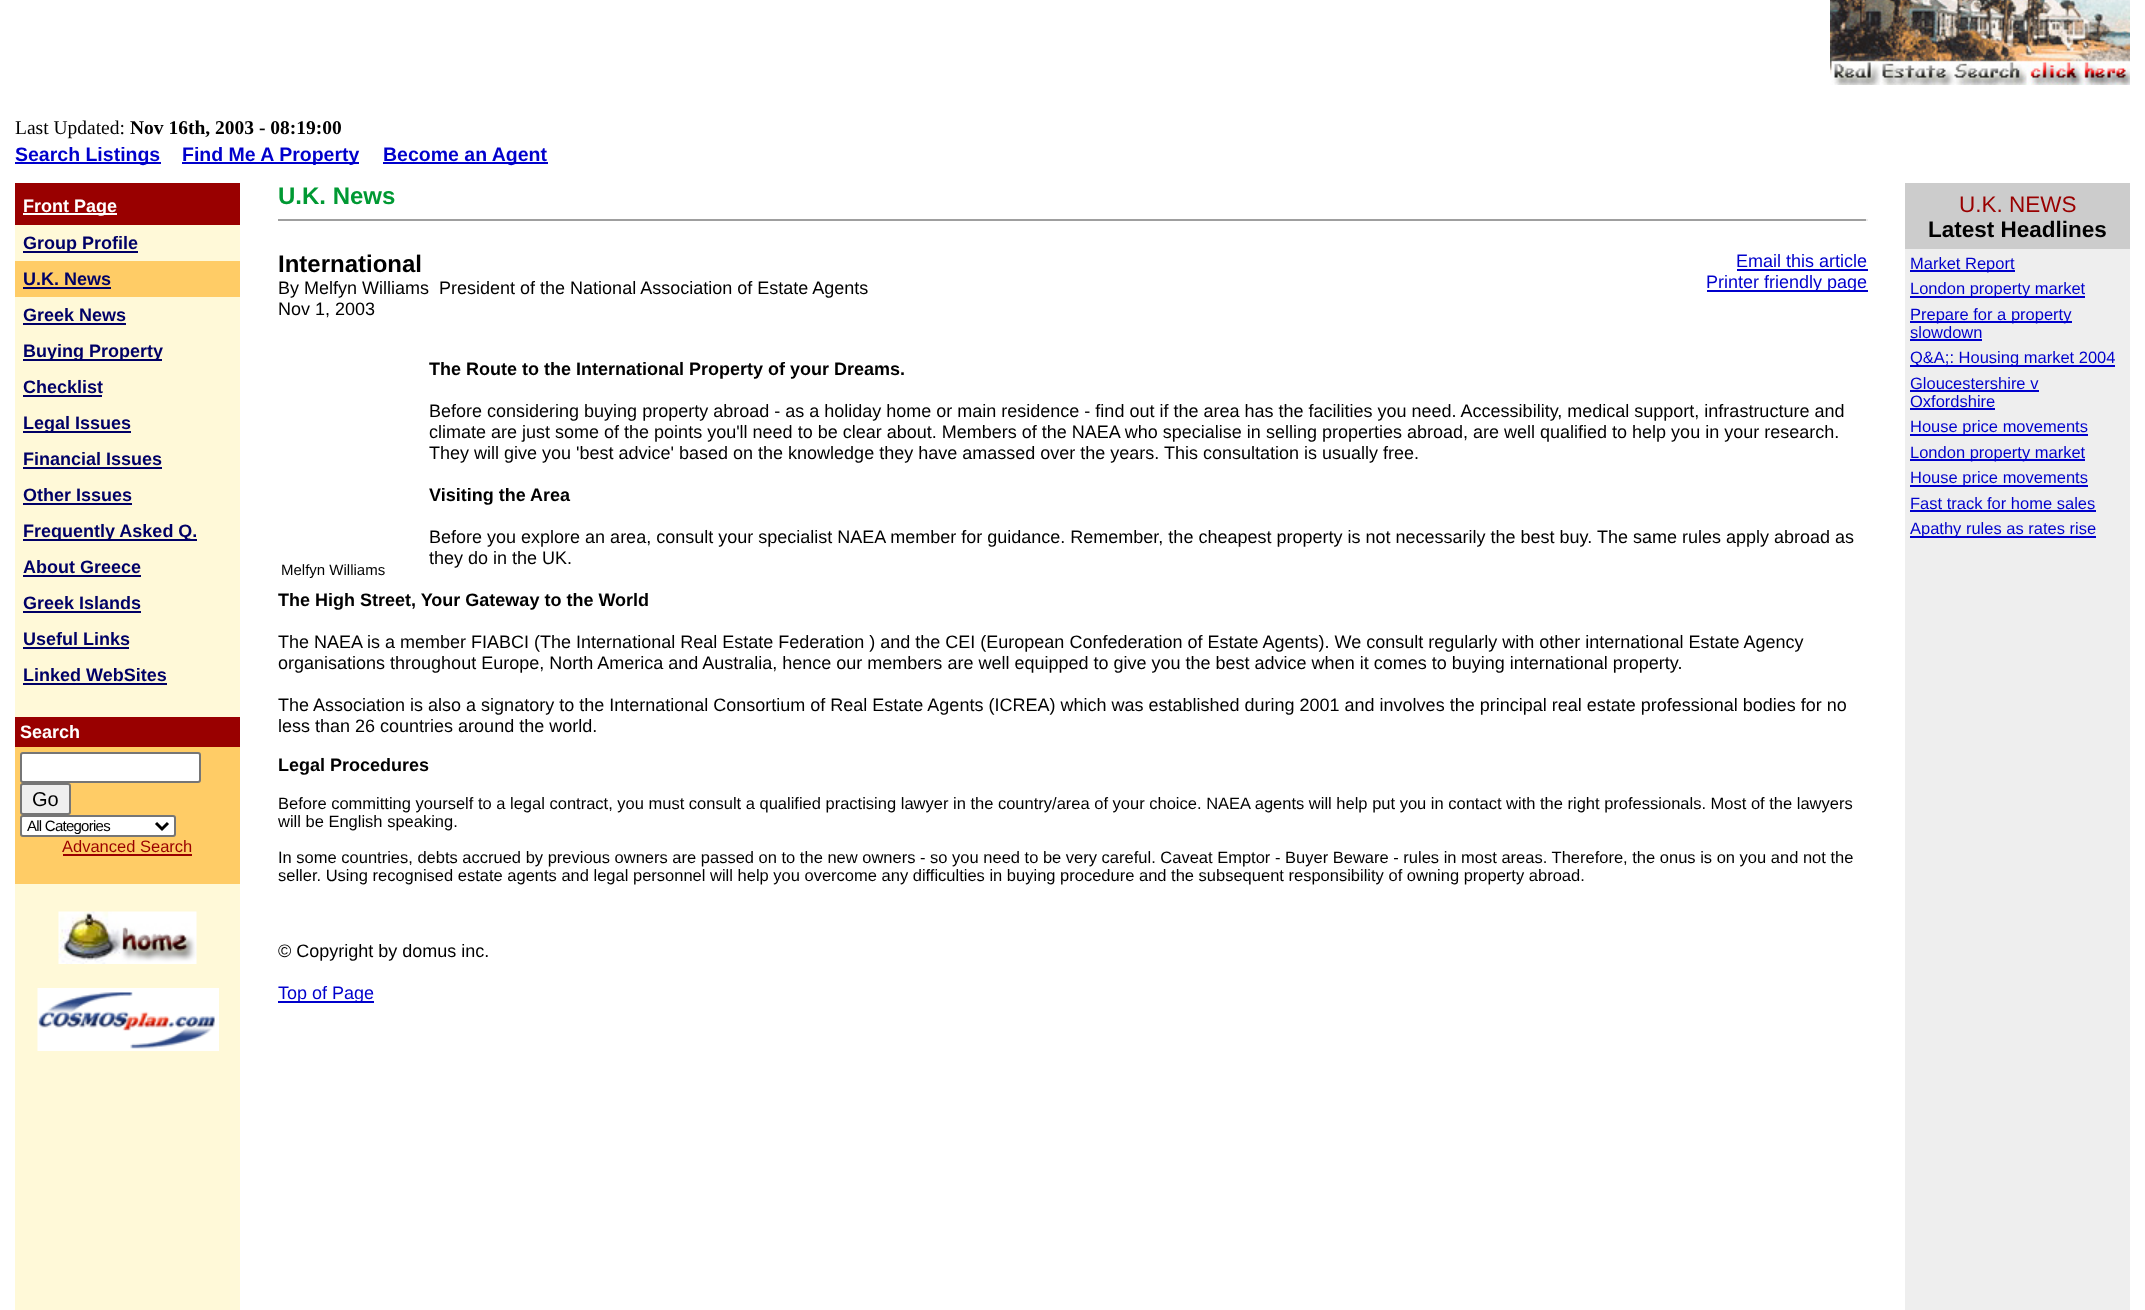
(async () => {
  const canvas = document.querySelector("canvas");
  canvas.width = 2145;
  canvas.height = 1310;
  const ctx = canvas.getContext("2d");
  ctx.miterLimit = 4;
  ctx.fontKerning = "normal";
  async function loadImage(src) {
    const img = new Image();
    img.src = src;
    await img.decode();
    return img;
  }
  let path;

  ctx.fillStyle = "#ffffff";
  ctx.fillRect(0, 0, 2145, 1310);
  ctx.drawImage(await loadImage("img/1.png"), 1830, 0, 300, 85);
  for (const [x, y, w, h, color] of [
    [15, 162, 146, 2, "#0000cc"],
    [182, 162, 177, 2, "#0000cc"],
    [383, 162, 165, 2, "#0000cc"],
    [15, 225, 225, 1085, "#fff9d8"],
    [15, 183, 225, 42, "#990000"],
    [23, 213, 94, 2, "#ffffff"],
    [23, 251, 115, 2, "#000066"],
    [15, 261, 225, 36, "#ffcc66"],
    [23, 287, 88, 2, "#000066"],
    [23, 323, 103, 2, "#000066"],
    [23, 359, 139, 2, "#000066"],
    [23, 395, 79, 2, "#000066"],
    [23, 431, 108, 2, "#000066"],
    [23, 467, 139, 2, "#000066"],
    [23, 503, 109, 2, "#000066"],
    [23, 539, 174, 2, "#000066"],
    [23, 575, 118, 2, "#000066"],
    [23, 611, 118, 2, "#000066"],
    [23, 647, 106, 2, "#000066"],
    [23, 683, 144, 2, "#000066"],
    [15, 717, 225, 30, "#990000"],
    [15, 747, 225, 137, "#ffcc66"],
  ]) {
    ctx.fillStyle = color;
    ctx.fillRect(x, y, w, h);
  }
  ctx.fillStyle = "#ffffff";
  ctx.beginPath();
  ctx.roundRect(21, 753, 179, 29, 2);
  ctx.fill();
  ctx.strokeStyle = "#767676";
  ctx.lineWidth = 2;
  ctx.stroke();
  ctx.fillStyle = "#efefef";
  ctx.beginPath();
  ctx.roundRect(21, 784, 49, 30, 2);
  ctx.fill();
  ctx.stroke();
  ctx.fillStyle = "#ffffff";
  ctx.beginPath();
  ctx.roundRect(21, 816, 154, 20, 2);
  ctx.fill();
  ctx.stroke();
  path = new Path2D("M156 823L162 829L168 823");
  ctx.strokeStyle = "#000000";
  ctx.lineWidth = 3;
  ctx.stroke(path);
  ctx.fillStyle = "#990000";
  ctx.fillRect(63, 854, 129, 2);
  ctx.drawImage(await loadImage("img/2.png"), 58, 911, 139, 53);
  ctx.drawImage(await loadImage("img/3.png"), 37, 988, 182, 63);
  for (const [x, y, w, h, color] of [
    [278, 219, 1590, 2, "#9f9f9f"],
    [1866, 219, 2, 2, "#eeeeee"],
    [1737, 269, 131, 2, "#0000cc"],
    [1707, 290, 161, 2, "#0000cc"],
    [278, 1001, 96, 2, "#0000cc"],
    [1905, 249, 225, 1061, "#eeeeee"],
    [1905, 183, 225, 66, "#cccccc"],
    [1910, 270, 105, 2, "#0000cc"],
    [1910, 296, 175, 2, "#0000cc"],
    [1910, 321, 162, 2, "#0000cc"],
    [1910, 339, 72, 2, "#0000cc"],
    [1910, 365, 205, 2, "#0000cc"],
    [1910, 390, 129, 2, "#0000cc"],
    [1910, 408, 85, 2, "#0000cc"],
    [1910, 434, 178, 2, "#0000cc"],
    [1910, 459, 175, 2, "#0000cc"],
    [1910, 485, 178, 2, "#0000cc"],
    [1910, 510, 186, 2, "#0000cc"],
    [1910, 536, 186, 2, "#0000cc"],
  ]) {
    ctx.fillStyle = color;
    ctx.fillRect(x, y, w, h);
  }
  ctx.font = "19.5px Liberation Serif";
  ctx.fillStyle = "#000000";
  ctx.fillText("Last Updated:", 15, 134);
  ctx.font = "bold 19.5px Liberation Serif";
  ctx.fillText("Nov 16th, 2003 - 08:19:00", 130, 134);
  ctx.font = "bold 19.5px Liberation Sans";
  ctx.fillStyle = "#0000cc";
  for (const [text, x, y] of [
    ["Search Listings", 15, 161],
    ["Find Me A Property", 182, 161],
    ["Become an Agent", 383, 161],
  ]) {
    ctx.fillText(text, x, y);
  }
  ctx.font = "bold 18px Liberation Sans";
  ctx.fillStyle = "#ffffff";
  ctx.fillText("Front Page", 23, 212);
  ctx.fillStyle = "#000066";
  for (const [text, x, y] of [
    ["Group Profile", 23, 249],
    ["U.K. News", 23, 285],
    ["Greek News", 23, 321],
    ["Buying Property", 23, 357],
    ["Checklist", 23, 393],
    ["Legal Issues", 23, 429],
    ["Financial Issues", 23, 465],
    ["Other Issues", 23, 501],
    ["Frequently Asked Q.", 23, 537],
    ["About Greece", 23, 573],
    ["Greek Islands", 23, 609],
    ["Useful Links", 23, 645],
    ["Linked WebSites", 23, 681],
  ]) {
    ctx.fillText(text, x, y);
  }
  ctx.fillStyle = "#ffffff";
  ctx.fillText("Search", 20, 738);
  ctx.font = "20px Liberation Sans";
  ctx.fillStyle = "#000000";
  ctx.fillText("Go", 32, 806);
  ctx.letterSpacing = "-0.75px";
  ctx.font = "15px Liberation Sans";
  ctx.fillText("All Categories", 27, 831);
  ctx.letterSpacing = "0px";
  ctx.font = "16.5px Liberation Sans";
  ctx.fillStyle = "#990000";
  ctx.fillText("Advanced Search", 62, 852);
  ctx.font = "bold 24px Liberation Sans";
  ctx.fillStyle = "#009933";
  ctx.fillText("U.K. News", 278, 204);
  ctx.fillStyle = "#000000";
  ctx.fillText("International", 278, 272);
  ctx.font = "18px Liberation Sans";
  ctx.fillText("By Melfyn Williams  President of the National Association of Estate Agents", 278, 294);
  ctx.fillText("Nov 1, 2003", 278, 315);
  ctx.fillStyle = "#0000cc";
  ctx.fillText("Email this article", 1736, 267);
  ctx.fillText("Printer friendly page", 1706, 288);
  ctx.font = "bold 18px Liberation Sans";
  ctx.fillStyle = "#000000";
  ctx.fillText("The Route to the International Property of your Dreams.", 429, 375);
  ctx.font = "18px Liberation Sans";
  for (const [text, x, y] of [
    ["Before considering buying property abroad - as a holiday home or main residence - find out if the area has the facilities you need. Accessibility, medical support, infrastructure and", 429, 417],
    ["climate are just some of the points you'll need to be clear about. Members of the NAEA who specialise in selling properties abroad, are well qualified to help you in your research.", 429, 438],
    ["They will give you 'best advice' based on the knowledge they have amassed over the years. This consultation is usually free.", 429, 459],
  ]) {
    ctx.fillText(text, x, y);
  }
  ctx.font = "bold 18px Liberation Sans";
  ctx.fillText("Visiting the Area", 429, 501);
  ctx.font = "18px Liberation Sans";
  ctx.fillText("Before you explore an area, consult your specialist NAEA member for guidance. Remember, the cheapest property is not necessarily the best buy. The same rules apply abroad as", 429, 543);
  ctx.fillText("they do in the UK.", 429, 564);
  ctx.font = "15px Liberation Sans";
  ctx.fillText("Melfyn Williams", 281, 575);
  ctx.font = "bold 18px Liberation Sans";
  ctx.fillText("The High Street, Your Gateway to the World", 278, 606);
  ctx.font = "18px Liberation Sans";
  for (const [text, x, y] of [
    ["The NAEA is a member FIABCI (The International Real Estate Federation ) and the CEI (European Confederation of Estate Agents). We consult regularly with other international Estate Agency", 278, 648],
    ["organisations throughout Europe, North America and Australia, hence our members are well equipped to give you the best advice when it comes to buying international property.", 278, 669],
    ["The Association is also a signatory to the International Consortium of Real Estate Agents (ICREA) which was established during 2001 and involves the principal real estate professional bodies for no", 278, 711],
    ["less than 26 countries around the world.", 278, 732],
  ]) {
    ctx.fillText(text, x, y);
  }
  ctx.font = "bold 18px Liberation Sans";
  ctx.fillText("Legal Procedures", 278, 771);
  ctx.font = "16.5px Liberation Sans";
  for (const [text, x, y] of [
    ["Before committing yourself to a legal contract, you must consult a qualified practising lawyer in the country/area of your choice. NAEA agents will help put you in contact with the right professionals. Most of the lawyers", 278, 809],
    ["will be English speaking.", 278, 827],
    ["In some countries, debts accrued by previous owners are passed on to the new owners - so you need to be very careful. Caveat Emptor - Buyer Beware - rules in most areas. Therefore, the onus is on you and not the", 278, 863],
    ["seller. Using recognised estate agents and legal personnel will help you overcome any difficulties in buying procedure and the subsequent responsibility of owning property abroad.", 278, 881],
  ]) {
    ctx.fillText(text, x, y);
  }
  ctx.font = "18px Liberation Sans";
  ctx.fillText("© Copyright by domus inc.", 278, 957);
  ctx.fillStyle = "#0000cc";
  ctx.fillText("Top of Page", 278, 999);
  ctx.font = "22.5px Liberation Sans";
  ctx.fillStyle = "#990000";
  ctx.fillText("U.K. NEWS", 1959, 212);
  ctx.font = "bold 22.5px Liberation Sans";
  ctx.fillStyle = "#000000";
  ctx.fillText("Latest Headlines", 1928, 237);
  ctx.font = "16.5px Liberation Sans";
  ctx.fillStyle = "#0000cc";
  for (const [text, x, y] of [
    ["Market Report", 1910, 269],
    ["London property market", 1910, 294],
    ["Prepare for a property", 1910, 320],
    ["slowdown", 1910, 338],
    ["Q&A;: Housing market 2004", 1910, 363],
    ["Gloucestershire v", 1910, 389],
    ["Oxfordshire", 1910, 407],
    ["House price movements", 1910, 432],
    ["London property market", 1910, 458],
    ["House price movements", 1910, 483],
    ["Fast track for home sales", 1910, 509],
    ["Apathy rules as rates rise", 1910, 534],
  ]) {
    ctx.fillText(text, x, y);
  }
})();
